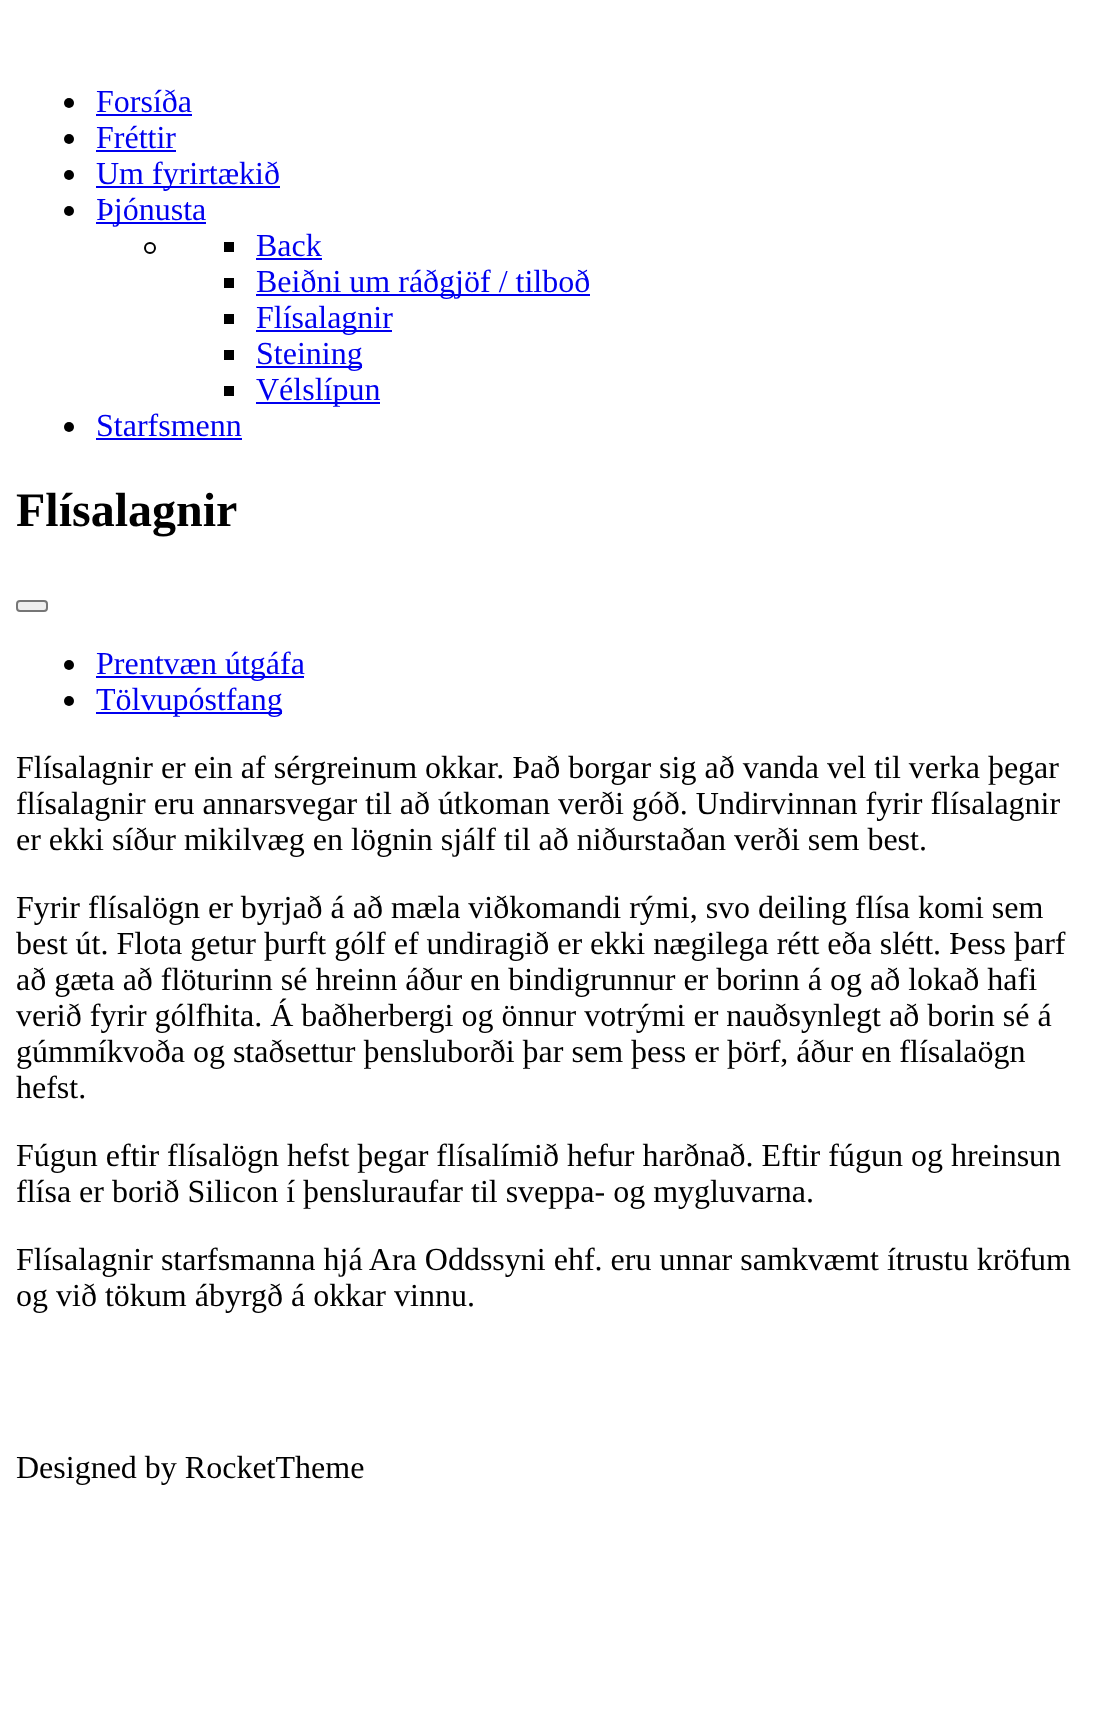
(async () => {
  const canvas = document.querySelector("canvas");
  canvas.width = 1107;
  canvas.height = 1725;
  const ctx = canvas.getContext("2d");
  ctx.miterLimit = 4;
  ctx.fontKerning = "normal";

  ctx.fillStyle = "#ffffff";
  ctx.fillRect(0, 0, 1107, 1725);
  ctx.fillStyle = "#000000";
  ctx.beginPath();
  ctx.arc(69, 103, 5, 0, Math.PI * 2);
  ctx.fill();
  ctx.fillStyle = "#0000ee";
  ctx.fillRect(96, 114, 96, 2);
  ctx.fillStyle = "#000000";
  ctx.beginPath();
  ctx.arc(69, 139, 5, 0, Math.PI * 2);
  ctx.fill();
  ctx.fillStyle = "#0000ee";
  ctx.fillRect(96, 150, 80, 2);
  ctx.fillStyle = "#000000";
  ctx.beginPath();
  ctx.arc(69, 175, 5, 0, Math.PI * 2);
  ctx.fill();
  ctx.fillStyle = "#0000ee";
  ctx.fillRect(96, 186, 184, 2);
  ctx.fillStyle = "#000000";
  ctx.beginPath();
  ctx.arc(69, 211, 5, 0, Math.PI * 2);
  ctx.fill();
  ctx.fillStyle = "#0000ee";
  ctx.fillRect(96, 222, 110, 2);
  ctx.beginPath();
  ctx.arc(150, 248, 5, 0, Math.PI * 2);
  ctx.strokeStyle = "#000000";
  ctx.lineWidth = 2;
  ctx.stroke();
  for (const [x, y, w, h, color] of [
    [224, 242, 10, 10, "#000000"],
    [256, 258, 66, 2, "#0000ee"],
    [224, 278, 10, 10, "#000000"],
    [256, 294, 334, 2, "#0000ee"],
    [224, 314, 10, 10, "#000000"],
    [256, 330, 136, 2, "#0000ee"],
    [224, 350, 10, 10, "#000000"],
    [256, 366, 106, 2, "#0000ee"],
    [224, 386, 10, 10, "#000000"],
    [256, 402, 124, 2, "#0000ee"],
  ]) {
    ctx.fillStyle = color;
    ctx.fillRect(x, y, w, h);
  }
  ctx.fillStyle = "#000000";
  ctx.beginPath();
  ctx.arc(69, 427, 5, 0, Math.PI * 2);
  ctx.fill();
  ctx.fillStyle = "#0000ee";
  ctx.fillRect(96, 438, 146, 2);
  ctx.fillStyle = "#efefef";
  ctx.beginPath();
  ctx.roundRect(17, 601, 30, 10, 3);
  ctx.fill();
  ctx.strokeStyle = "#767676";
  ctx.stroke();
  ctx.fillStyle = "#000000";
  ctx.beginPath();
  ctx.arc(69, 665, 5, 0, Math.PI * 2);
  ctx.fill();
  ctx.fillStyle = "#0000ee";
  ctx.fillRect(96, 676, 208, 2);
  ctx.fillStyle = "#000000";
  ctx.beginPath();
  ctx.arc(69, 701, 5, 0, Math.PI * 2);
  ctx.fill();
  ctx.fillStyle = "#0000ee";
  ctx.fillRect(96, 712, 186, 2);
  ctx.font = "32px Liberation Serif";
  for (const [text, x, y] of [
    ["Forsíða", 96, 112],
    ["Fréttir", 96, 148],
    ["Um fyrirtækið", 96, 184],
    ["Þjónusta", 96, 220],
    ["Back", 256, 256],
    ["Beiðni um ráðgjöf / tilboð", 256, 292],
    ["Flísalagnir", 256, 328],
    ["Steining", 256, 364],
    ["Vélslípun", 256, 400],
    ["Starfsmenn", 96, 436],
  ]) {
    ctx.fillText(text, x, y);
  }
  ctx.font = "bold 48px Liberation Serif";
  ctx.fillStyle = "#000000";
  ctx.fillText("Flísalagnir", 16, 526);
  ctx.font = "32px Liberation Serif";
  ctx.fillStyle = "#0000ee";
  ctx.fillText("Prentvæn útgáfa", 96, 674);
  ctx.fillText("Tölvupóstfang", 96, 710);
  ctx.fillStyle = "#000000";
  for (const [text, x, y] of [
    ["Flísalagnir er ein af sérgreinum okkar. Það borgar sig að vanda vel til verka þegar", 16, 778],
    ["flísalagnir eru annarsvegar til að útkoman verði góð. Undirvinnan fyrir flísalagnir", 16, 814],
    ["er ekki síður mikilvæg en lögnin sjálf til að niðurstaðan verði sem best.", 16, 850],
    ["Fyrir flísalögn er byrjað á að mæla viðkomandi rými, svo deiling flísa komi sem", 16, 918],
    ["best út. Flota getur þurft gólf ef undiragið er ekki nægilega rétt eða slétt. Þess þarf", 16, 954],
    ["að gæta að flöturinn sé hreinn áður en bindigrunnur er borinn á og að lokað hafi", 16, 990],
    ["verið fyrir gólfhita. Á baðherbergi og önnur votrými er nauðsynlegt að borin sé á", 16, 1026],
    ["gúmmíkvoða og staðsettur þensluborði þar sem þess er þörf, áður en flísalaögn", 16, 1062],
    ["hefst.", 16, 1098],
    ["Fúgun eftir flísalögn hefst þegar flísalímið hefur harðnað. Eftir fúgun og hreinsun", 16, 1166],
    ["flísa er borið Silicon í þensluraufar til sveppa- og mygluvarna.", 16, 1202],
    ["Flísalagnir starfsmanna hjá Ara Oddssyni ehf. eru unnar samkvæmt ítrustu kröfum", 16, 1270],
    ["og við tökum ábyrgð á okkar vinnu.", 16, 1306],
    ["Designed by RocketTheme", 16, 1478],
  ]) {
    ctx.fillText(text, x, y);
  }
})();
